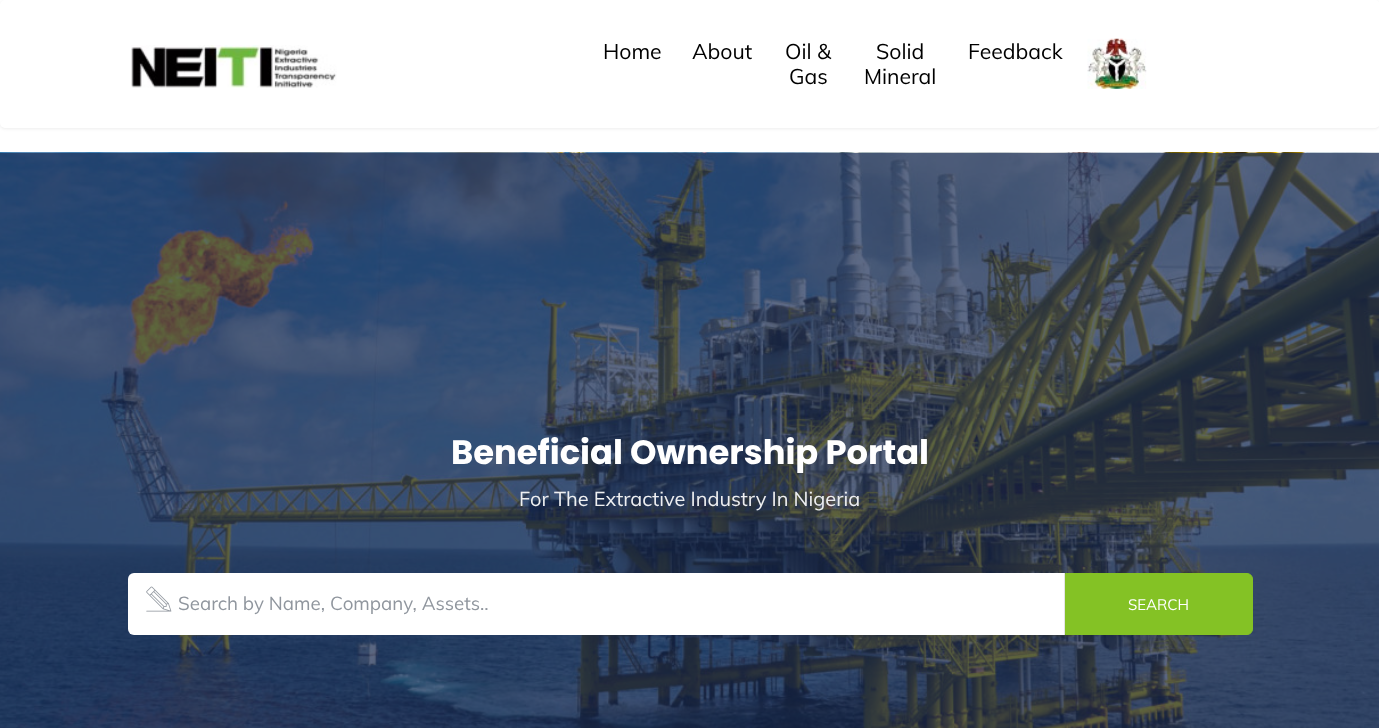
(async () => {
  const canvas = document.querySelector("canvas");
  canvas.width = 1379;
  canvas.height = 728;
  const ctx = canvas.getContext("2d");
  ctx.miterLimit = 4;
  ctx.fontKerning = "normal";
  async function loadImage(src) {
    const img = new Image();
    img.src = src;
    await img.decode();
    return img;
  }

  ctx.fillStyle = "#ffffff";
  ctx.fillRect(0, 0, 1379, 728);
  ctx.fillStyle = "rgba(0, 0, 0, 0.07)";
  ctx.filter = "blur(1.5px)";
  ctx.beginPath();
  ctx.roundRect(0, 1, 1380, 128, 5);
  ctx.fill();
  ctx.filter = "none";
  ctx.fillStyle = "#ffffff";
  ctx.beginPath();
  ctx.roundRect(0, 0, 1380, 128, 5);
  ctx.fill();
  ctx.drawImage(await loadImage("img/1.png"), 131, 45, 206, 43);
  ctx.drawImage(await loadImage("img/2.png"), 1087, 38, 60, 51);
  ctx.drawImage(await loadImage("img/3.png"), 0, 152, 1379, 576);
  ctx.beginPath();
  ctx.roundRect(128, 573, 937, 62, [6, 0, 0, 6]);
  ctx.fill();
  ctx.drawImage(await loadImage("img/4.png"), 146, 586, 26, 26);
  ctx.fillStyle = "#e4e4e4";
  ctx.fillRect(1064, 573, 1, 62);
  ctx.fillStyle = "#84c225";
  ctx.beginPath();
  ctx.roundRect(1065.5, 573.5, 187, 61, [0, 5.5, 5.5, 0]);
  ctx.fill();
  ctx.strokeStyle = "#84c225";
  ctx.stroke();
  ctx.font = "21.25px Muli";
  ctx.fillStyle = "#000000";
  for (const [text, x, y] of [
    ["Home", 603, 59],
    ["About", 692, 59],
    ["Oil &", 785, 59],
    ["Gas", 789, 84],
    ["Solid", 876, 59],
    ["Mineral", 864, 84],
    ["Feedback", 968, 59],
  ]) {
    ctx.fillText(text, x, y);
  }
  ctx.font = "bold 33.75px Poppins";
  ctx.fillStyle = "#ffffff";
  ctx.fillText("Beneficial Ownership Portal", 451, 464);
  ctx.font = "20px Muli";
  ctx.fillStyle = "#eeeff1";
  ctx.fillText("For The Extractive Industry In Nigeria", 519, 506);
  ctx.font = "18.75px Muli";
  ctx.fillStyle = "#90969e";
  ctx.fillText("Search by Name, Company, Assets..", 178, 610);
  ctx.font = "15px Muli";
  ctx.fillStyle = "#ffffff";
  ctx.fillText("SEARCH", 1128, 610);
})();
